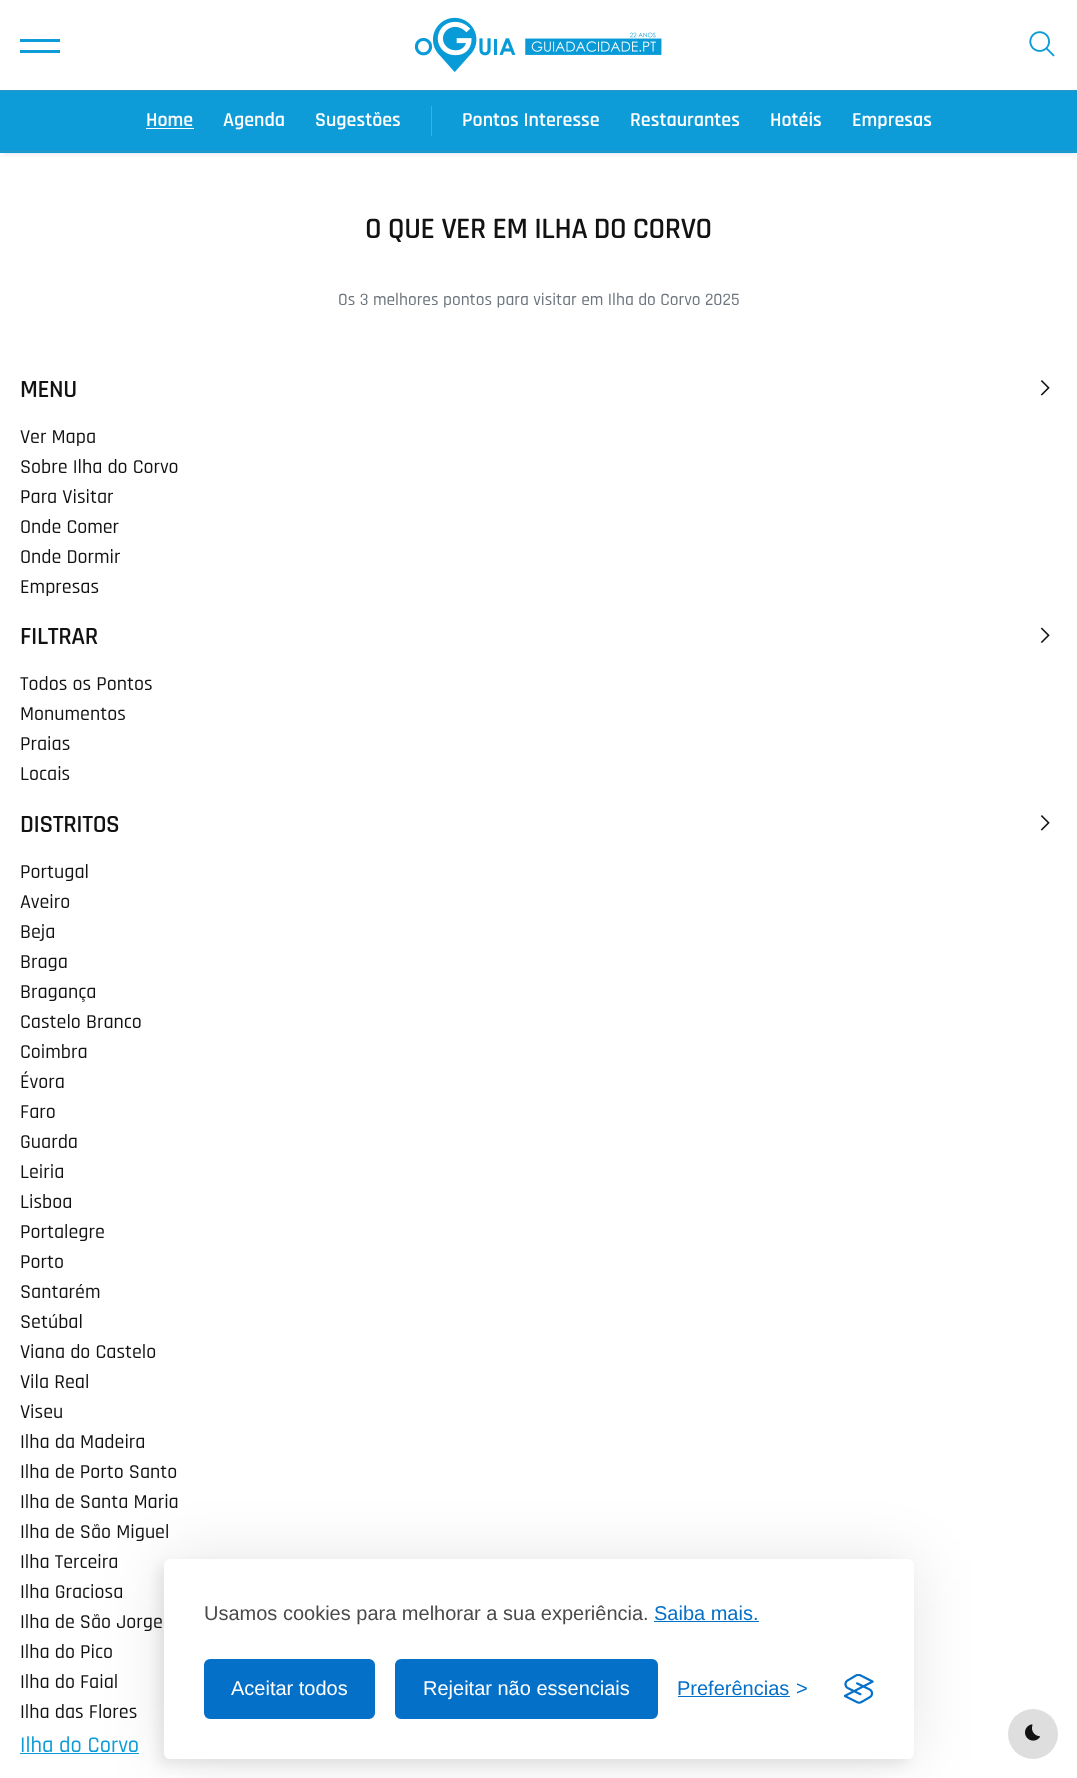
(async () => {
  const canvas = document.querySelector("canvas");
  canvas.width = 1077;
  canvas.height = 1778;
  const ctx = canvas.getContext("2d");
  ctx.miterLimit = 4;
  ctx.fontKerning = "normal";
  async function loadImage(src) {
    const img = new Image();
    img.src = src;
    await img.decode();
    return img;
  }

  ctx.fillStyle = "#ffffff";
  ctx.fillRect(0, 0, 1077, 1778);
  ctx.fillStyle = "rgba(0, 0, 0, 0.15)";
  ctx.filter = "blur(2.5px)";
  ctx.beginPath();
  ctx.rect(3, 5, 1072, 148);
  ctx.fill();
  ctx.filter = "none";
  for (const [x, y, w, h, color] of [
    [0, 1, 1077, 89, "#ffffff"],
    [20, 39, 40, 3, "#0d9cd8"],
    [20, 50, 40, 3, "#0d9cd8"],
  ]) {
    ctx.fillStyle = color;
    ctx.fillRect(x, y, w, h);
  }
  ctx.drawImage(await loadImage("img/1.png"), 414, 17, 248, 55);
  ctx.drawImage(await loadImage("img/2.png"), 1029, 31, 26, 26);
  for (const [x, y, w, h, color] of [
    [0, 91, 1077, 62, "#0d9cd8"],
    [0, 90, 1077, 1, "#2b96c3"],
    [0, 151, 1077, 1, "#2b96c3"],
    [146, 128, 48, 1, "#ffffff"],
    [431, 106, 1, 30, "#42adda"],
  ]) {
    ctx.fillStyle = color;
    ctx.fillRect(x, y, w, h);
  }
  ctx.drawImage(await loadImage("img/3.png"), 1040, 380, 10, 16);
  ctx.drawImage(await loadImage("img/4.png"), 1040, 627, 10, 16);
  ctx.drawImage(await loadImage("img/3.png"), 1040, 815, 10, 16);
  ctx.fillStyle = "#0d9cd8";
  ctx.fillRect(20, 1753, 119, 1);
  ctx.fillStyle = "rgba(0, 0, 0, 0.1)";
  ctx.filter = "blur(31px)";
  ctx.beginPath();
  ctx.roundRect(164, 1559, 750, 200, 6);
  ctx.fill();
  ctx.filter = "none";
  ctx.fillStyle = "rgba(0, 0, 0, 0.07)";
  ctx.filter = "blur(6px)";
  ctx.beginPath();
  ctx.roundRect(158, 1565, 750, 200, 6);
  ctx.fill();
  ctx.filter = "none";
  ctx.fillStyle = "#ffffff";
  ctx.beginPath();
  ctx.roundRect(164, 1559, 750, 200, 6);
  ctx.fill();
  ctx.fillStyle = "#0470c8";
  ctx.fillRect(654, 1621, 105, 1);
  ctx.beginPath();
  ctx.roundRect(205.5, 1660.5, 168, 57, 4.5);
  ctx.fill();
  ctx.strokeStyle = "#0470c8";
  ctx.lineWidth = 3;
  ctx.stroke();
  ctx.beginPath();
  ctx.roundRect(396.5, 1660.5, 260, 57, 4.5);
  ctx.fill();
  ctx.stroke();
  ctx.fillRect(678, 1696, 112, 1);
  ctx.drawImage(await loadImage("img/5.png"), 844, 1674, 30, 30);
  ctx.fillStyle = "#dedede";
  ctx.beginPath();
  ctx.arc(1033, 1734, 25, 0, Math.PI * 2);
  ctx.fill();
  ctx.drawImage(await loadImage("img/6.png"), 1025, 1724, 15, 17);
  ctx.font = "600 20px Rajdhani";
  ctx.fillStyle = "#ffffff";
  for (const [text, x, y] of [
    ["Home", 146, 126],
    ["Agenda", 223, 126],
    ["Sugestões", 315, 126],
    ["Pontos Interesse", 462, 126],
    ["Restaurantes", 630, 126],
    ["Hotéis", 770, 126],
    ["Empresas", 852, 126],
  ]) {
    ctx.fillText(text, x, y);
  }
  ctx.letterSpacing = "-0.45px";
  ctx.font = "600 30px Rajdhani";
  ctx.fillStyle = "#121212";
  ctx.fillText("O QUE VER EM ILHA DO CORVO", 365, 238);
  ctx.letterSpacing = "0px";
  ctx.font = "500 17.5px Rajdhani";
  ctx.fillStyle = "#6c757d";
  ctx.fillText("Os 3 melhores pontos para visitar em Ilha do Corvo 2025", 338, 305);
  ctx.letterSpacing = "-0.4px";
  ctx.font = "600 25px Rajdhani";
  ctx.fillStyle = "#121212";
  ctx.fillText("MENU", 20, 397);
  ctx.letterSpacing = "0px";
  ctx.font = "500 20px Rajdhani";
  for (const [text, x, y] of [
    ["Ver Mapa", 20, 443],
    ["Sobre Ilha do Corvo", 20, 473],
    ["Para Visitar", 20, 503],
    ["Onde Comer", 20, 533],
    ["Onde Dormir", 20, 563],
    ["Empresas", 20, 593],
  ]) {
    ctx.fillText(text, x, y);
  }
  ctx.letterSpacing = "-0.4px";
  ctx.font = "600 25px Rajdhani";
  ctx.fillText("FILTRAR", 20, 644);
  ctx.letterSpacing = "0px";
  ctx.font = "500 20px Rajdhani";
  for (const [text, x, y] of [
    ["Todos os Pontos", 20, 690],
    ["Monumentos", 20, 720],
    ["Praias", 20, 750],
    ["Locais", 20, 780],
  ]) {
    ctx.fillText(text, x, y);
  }
  ctx.letterSpacing = "-0.4px";
  ctx.font = "600 25px Rajdhani";
  ctx.fillText("DISTRITOS", 20, 832);
  ctx.letterSpacing = "0px";
  ctx.font = "500 20px Rajdhani";
  for (const [text, x, y] of [
    ["Portugal", 20, 878],
    ["Aveiro", 20, 908],
    ["Beja", 20, 938],
    ["Braga", 20, 968],
    ["Bragança", 20, 998],
    ["Castelo Branco", 20, 1028],
    ["Coimbra", 20, 1058],
    ["Évora", 20, 1088],
    ["Faro", 20, 1118],
    ["Guarda", 20, 1148],
    ["Leiria", 20, 1178],
    ["Lisboa", 20, 1208],
    ["Portalegre", 20, 1238],
    ["Porto", 20, 1268],
    ["Santarém", 20, 1298],
    ["Setúbal", 20, 1328],
    ["Viana do Castelo", 20, 1358],
    ["Vila Real", 20, 1388],
    ["Viseu", 20, 1418],
    ["Ilha da Madeira", 20, 1448],
    ["Ilha de Porto Santo", 20, 1478],
    ["Ilha de Santa Maria", 20, 1508],
    ["Ilha de São Miguel", 20, 1538],
    ["Ilha Terceira", 20, 1568],
    ["Ilha Graciosa", 20, 1598],
    ["Ilha de São Jorge", 20, 1628],
    ["Ilha do Pico", 20, 1658],
    ["Ilha do Faial", 20, 1688],
    ["Ilha das Flores", 20, 1718],
  ]) {
    ctx.fillText(text, x, y);
  }
  ctx.font = "500 22.5px Rajdhani";
  ctx.fillStyle = "#0d9cd8";
  ctx.fillText("Ilha do Corvo", 20, 1752);
  ctx.font = "20px Liberation Sans";
  ctx.fillStyle = "#4b494b";
  ctx.fillText("Usamos cookies para melhorar a sua experiência.", 204, 1620);
  ctx.fillStyle = "#0470c8";
  ctx.fillText("Saiba mais.", 654, 1620);
  ctx.fillStyle = "#ffffff";
  ctx.fillText("Aceitar todos", 231, 1695);
  ctx.fillText("Rejeitar não essenciais", 423, 1695);
  ctx.fillStyle = "#0470c8";
  ctx.fillText("Preferências", 677, 1695);
  ctx.fillText(">", 796, 1695);
})();
